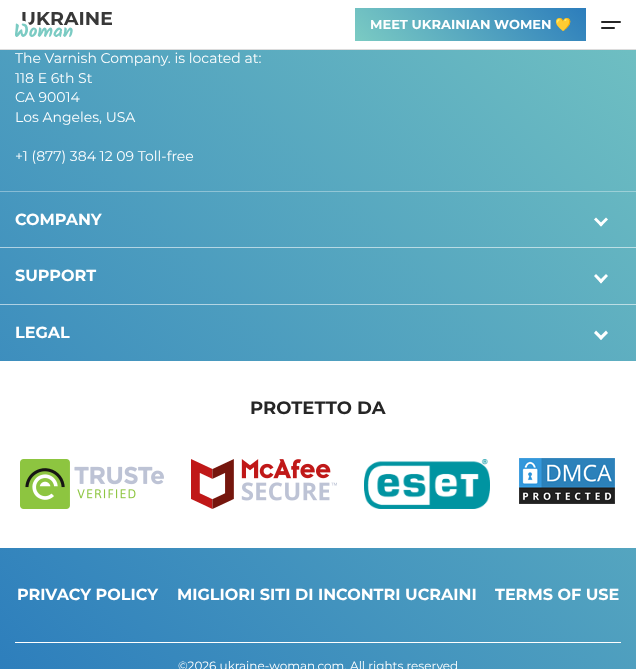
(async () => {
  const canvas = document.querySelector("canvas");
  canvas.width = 636;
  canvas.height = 669;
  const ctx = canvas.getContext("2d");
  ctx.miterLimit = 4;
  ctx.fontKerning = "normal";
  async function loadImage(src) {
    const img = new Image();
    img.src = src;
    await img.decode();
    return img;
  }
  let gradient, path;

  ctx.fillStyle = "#ffffff";
  ctx.fillRect(0, 0, 636, 669);
  ctx.fillStyle = "#dcdcdc";
  ctx.fillRect(0, 49, 636, 1);
  ctx.drawImage(await loadImage("img/1.png"), 15, 12, 97, 25);
  gradient = ctx.createLinearGradient(405, 91, 537, -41);
  gradient.addColorStop(0, "#7bcbc3");
  gradient.addColorStop(1, "#2c7dbc");
  ctx.fillStyle = gradient;
  ctx.fillRect(355, 8, 231, 33);
  ctx.fillStyle = "#262626";
  ctx.beginPath();
  ctx.roundRect(601, 21, 20, 2, 1);
  ctx.fill();
  ctx.beginPath();
  ctx.roundRect(601, 27, 14, 2, 1);
  ctx.fill();
  gradient = ctx.createLinearGradient(-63, 632, 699, -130);
  gradient.addColorStop(0, "#2c7dbc");
  gradient.addColorStop(1, "#7bcbc3");
  ctx.fillStyle = gradient;
  ctx.fillRect(0, 50, 636, 619);
  gradient = ctx.createLinearGradient(-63, 632, 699, -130);
  gradient.addColorStop(0, "#a6c8e2");
  gradient.addColorStop(1, "#c7e9e6");
  ctx.fillStyle = gradient;
  ctx.fillRect(0, 304, 636, 1);
  ctx.fillRect(0, 247, 636, 1);
  gradient = ctx.createLinearGradient(-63, 632, 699, -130);
  gradient.addColorStop(0, "#76abd3");
  gradient.addColorStop(1, "#a9ddd8");
  ctx.fillStyle = gradient;
  ctx.fillRect(0, 191, 636, 1);
  ctx.fillStyle = "#ffffff";
  path = new Path2D("M608 219.5L601 226.5L599 224.5L606 217.5Z");
  ctx.fill(path);
  path = new Path2D("M603 224.5L601 226.5L594 219.5L596 217.5Z");
  ctx.fill(path);
  path = new Path2D("M608 276L601 283.5L599 281L606 274Z");
  ctx.fill(path);
  path = new Path2D("M603 281L601 283.5L594 276L596 274Z");
  ctx.fill(path);
  path = new Path2D("M608 333L601 340L599 337.5L606 330.5Z");
  ctx.fill(path);
  path = new Path2D("M603 337.5L601 340L594 333L596 330.5Z");
  ctx.fill(path);
  ctx.fillRect(0, 361, 636, 187);
  ctx.drawImage(await loadImage("img/2.png"), 20, 459, 144, 50);
  ctx.drawImage(await loadImage("img/3.png"), 191, 459, 146, 50);
  ctx.drawImage(await loadImage("img/4.png"), 364, 459, 126, 50);
  ctx.drawImage(await loadImage("img/5.png"), 519, 458, 96, 46);
  ctx.fillRect(15, 642, 606, 1);
  ctx.font = "bold 13px Montserrat";
  ctx.fillText("MEET UKRAINIAN WOMEN", 370, 29);
  ctx.font = "bold 13px Noto Color Emoji";
  ctx.fillText("💛", 555, 29);
  ctx.font = "14px Montserrat";
  for (const [text, x, y] of [
    ["The Varnish Company. is located at:", 15, 63],
    ["118 E 6th St", 15, 83],
    ["CA 90014", 15, 102],
    ["Los Angeles, USA", 15, 122],
    ["+1 (877) 384 12 09 Toll-free", 15, 161],
  ]) {
    ctx.fillText(text, x, y);
  }
  ctx.font = "bold 16px Montserrat";
  for (const [text, x, y] of [
    ["COMPANY", 15, 225],
    ["SUPPORT", 15, 281],
    ["LEGAL", 15, 338],
  ]) {
    ctx.fillText(text, x, y);
  }
  ctx.font = "bold 18px Montserrat";
  ctx.fillStyle = "#262626";
  ctx.fillText("PROTETTO DA", 250, 414);
  ctx.font = "bold 16px Montserrat";
  ctx.fillStyle = "#ffffff";
  for (const [text, x, y] of [
    ["PRIVACY POLICY", 17, 600],
    ["MIGLIORI SITI DI INCONTRI UCRAINI", 177, 600],
    ["TERMS OF USE", 495, 600],
  ]) {
    ctx.fillText(text, x, y);
  }
  ctx.font = "12px Montserrat";
  ctx.fillText("©2026 ukraine-woman.com. All rights reserved", 178, 670);
})();
